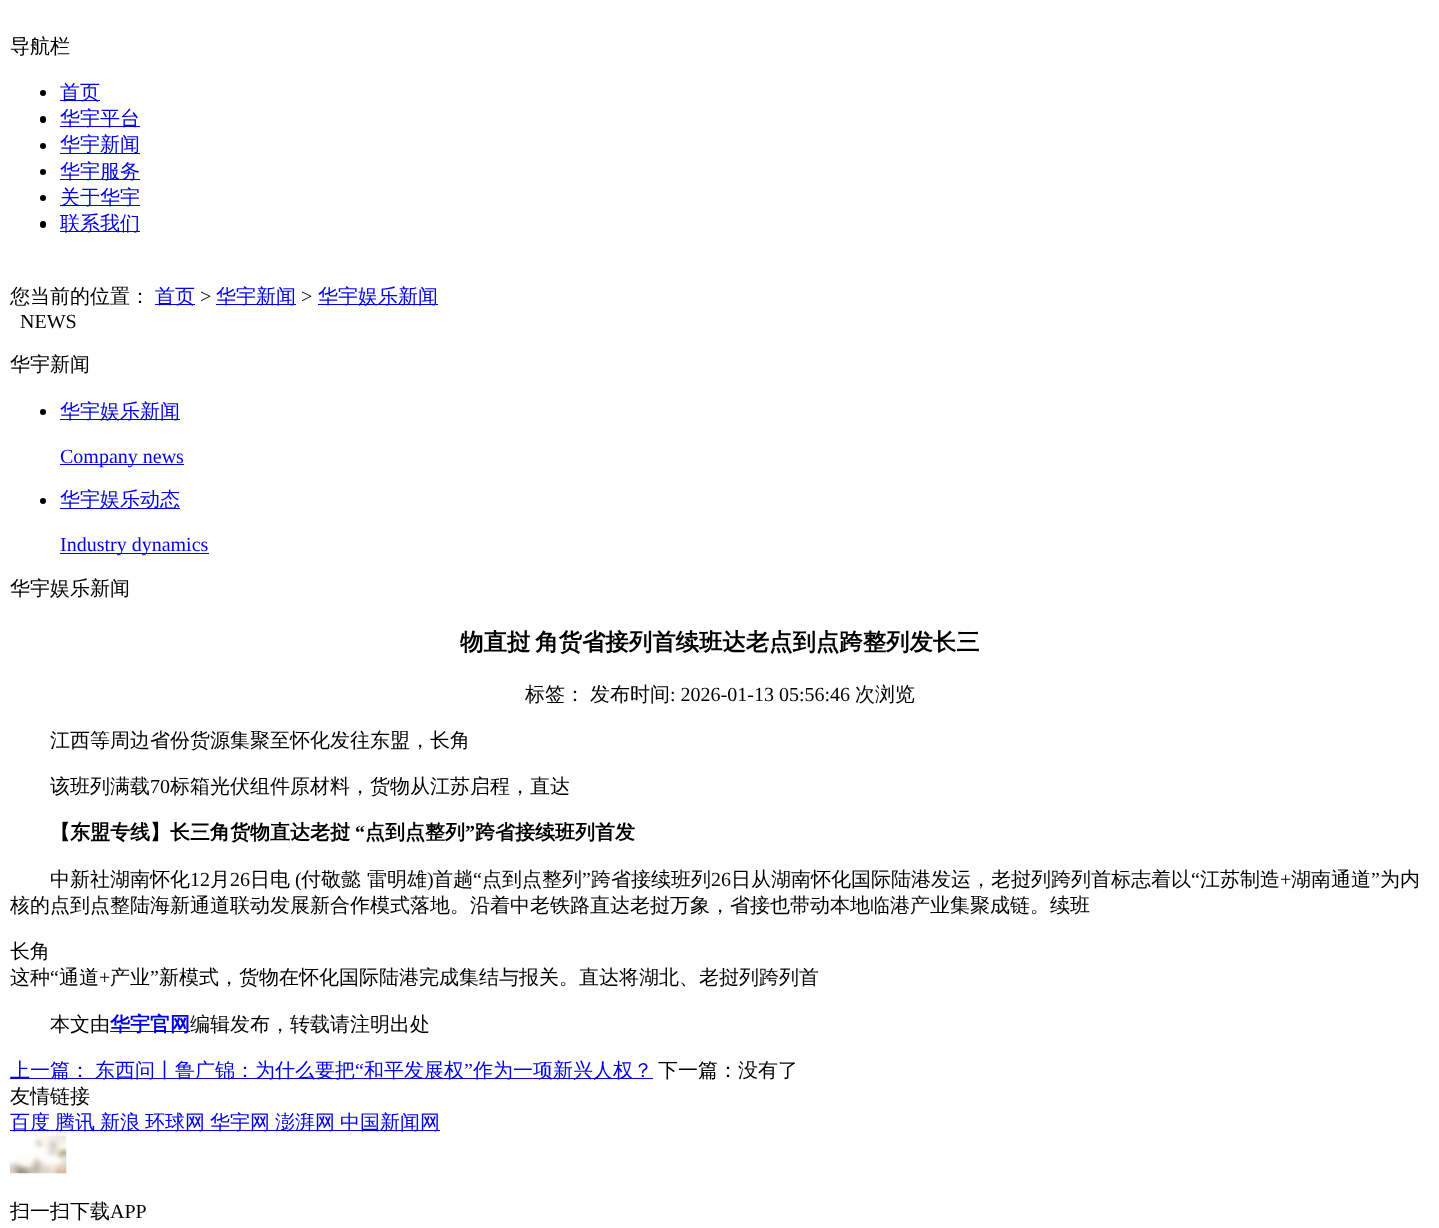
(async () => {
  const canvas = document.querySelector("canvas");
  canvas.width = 1439;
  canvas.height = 1228;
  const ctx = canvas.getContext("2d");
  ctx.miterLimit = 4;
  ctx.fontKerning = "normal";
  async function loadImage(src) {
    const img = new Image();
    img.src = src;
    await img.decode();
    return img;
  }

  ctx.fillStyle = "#ffffff";
  ctx.fillRect(0, 0, 1439, 1228);
  ctx.fillStyle = "#000000";
  ctx.beginPath();
  ctx.arc(43, 93, 3, 0, Math.PI * 2);
  ctx.fill();
  ctx.fillStyle = "#0000ee";
  ctx.fillRect(60, 100, 40, 1);
  ctx.fillStyle = "#000000";
  ctx.beginPath();
  ctx.roundRect(40, 116, 6, 7, 3);
  ctx.fill();
  ctx.fillStyle = "#0000ee";
  ctx.fillRect(60, 126, 80, 1);
  ctx.fillStyle = "#000000";
  ctx.beginPath();
  ctx.arc(43, 146, 3, 0, Math.PI * 2);
  ctx.fill();
  ctx.fillStyle = "#0000ee";
  ctx.fillRect(60, 153, 80, 1);
  ctx.fillStyle = "#000000";
  ctx.beginPath();
  ctx.arc(43, 172, 3, 0, Math.PI * 2);
  ctx.fill();
  ctx.fillStyle = "#0000ee";
  ctx.fillRect(60, 179, 80, 1);
  ctx.fillStyle = "#000000";
  ctx.beginPath();
  ctx.arc(43, 198, 3, 0, Math.PI * 2);
  ctx.fill();
  ctx.fillStyle = "#0000ee";
  ctx.fillRect(60, 205, 80, 1);
  ctx.fillStyle = "#000000";
  ctx.beginPath();
  ctx.roundRect(40, 221, 6, 7, 3);
  ctx.fill();
  for (const [x, y, w, h, color] of [
    [60, 231, 80, 1, "#0000ee"],
    [155, 304, 40, 1, "#0000ee"],
    [216, 304, 80, 1, "#0000ee"],
    [318, 304, 120, 1, "#0000ee"],
  ]) {
    ctx.fillStyle = color;
    ctx.fillRect(x, y, w, h);
  }
  ctx.fillStyle = "#000000";
  ctx.beginPath();
  ctx.arc(43, 412, 3, 0, Math.PI * 2);
  ctx.fill();
  ctx.fillStyle = "#0000ee";
  ctx.fillRect(60, 419, 120, 1);
  ctx.fillRect(60, 464, 124, 1);
  ctx.fillStyle = "#000000";
  ctx.beginPath();
  ctx.arc(43, 501, 3, 0, Math.PI * 2);
  ctx.fill();
  for (const [x, y, w, h, color] of [
    [60, 508, 120, 1, "#0000ee"],
    [60, 553, 149, 1, "#0000ee"],
    [110, 1031, 80, 1, "#0000ee"],
    [10, 1078, 643, 1, "#0000ee"],
    [10, 1130, 430, 1, "#0000ee"],
  ]) {
    ctx.fillStyle = color;
    ctx.fillRect(x, y, w, h);
  }
  ctx.drawImage(await loadImage("img/1.png"), 10, 1135, 57, 39);
  ctx.font = "500 20px WenQuanYi Zen Hei";
  ctx.fillStyle = "#000000";
  ctx.fillText("导航栏", 10, 53);
  ctx.fillStyle = "#0000ee";
  for (const [text, x, y] of [
    ["首页", 60, 99],
    ["华宇平台", 60, 125],
    ["华宇新闻", 60, 151],
    ["华宇服务", 60, 178],
    ["关于华宇", 60, 204],
    ["联系我们", 60, 230],
  ]) {
    ctx.fillText(text, x, y);
  }
  ctx.fillStyle = "#000000";
  ctx.fillText("您当前的位置：", 10, 303);
  ctx.fillStyle = "#0000ee";
  ctx.fillText("首页", 155, 303);
  ctx.font = "20px Liberation Serif";
  ctx.fillStyle = "#000000";
  ctx.fillText(">", 200, 303);
  ctx.font = "500 20px WenQuanYi Zen Hei";
  ctx.fillStyle = "#0000ee";
  ctx.fillText("华宇新闻", 216, 303);
  ctx.font = "20px Liberation Serif";
  ctx.fillStyle = "#000000";
  ctx.fillText(">", 301, 303);
  ctx.font = "500 20px WenQuanYi Zen Hei";
  ctx.fillStyle = "#0000ee";
  ctx.fillText("华宇娱乐新闻", 318, 303);
  ctx.font = "20px Liberation Serif";
  ctx.fillStyle = "#000000";
  ctx.fillText("NEWS", 20, 328);
  ctx.font = "500 20px WenQuanYi Zen Hei";
  ctx.fillText("华宇新闻", 10, 371);
  ctx.fillStyle = "#0000ee";
  ctx.fillText("华宇娱乐新闻", 60, 418);
  ctx.font = "20px Liberation Serif";
  ctx.fillText("Company news", 60, 463);
  ctx.font = "500 20px WenQuanYi Zen Hei";
  ctx.fillText("华宇娱乐动态", 60, 506);
  ctx.font = "20px Liberation Serif";
  ctx.fillText("Industry dynamics", 60, 551);
  ctx.font = "500 20px WenQuanYi Zen Hei";
  ctx.fillStyle = "#000000";
  ctx.fillText("华宇娱乐新闻", 10, 595);
  ctx.wordSpacing = "-2px";
  ctx.font = "bold 23.4px WenQuanYi Zen Hei";
  ctx.fillText("物直挝 角货省接列首续班达老点到点跨整列发长三", 460, 650);
  ctx.wordSpacing = "0px";
  ctx.font = "500 20px WenQuanYi Zen Hei";
  ctx.fillText("标签：", 525, 701);
  ctx.fillText("发布时间", 590, 701);
  ctx.font = "20px Liberation Serif";
  ctx.fillText(": 2026-01-13 05:56:46", 670, 701);
  ctx.font = "500 20px WenQuanYi Zen Hei";
  for (const [text, x, y] of [
    ["次浏览", 855, 701],
    ["江西等周边省份货源集聚至怀化发往东盟，长角", 50, 747],
    ["该班列满载", 50, 793],
  ]) {
    ctx.fillText(text, x, y);
  }
  ctx.font = "20px Liberation Serif";
  ctx.fillText("70", 150, 793);
  ctx.font = "500 20px WenQuanYi Zen Hei";
  ctx.fillText("标箱光伏组件原材料，货物从江苏启程，直达", 170, 793);
  ctx.font = "bold 20px WenQuanYi Zen Hei";
  ctx.fillText("【东盟专线】长三角货物直达老挝", 50, 839);
  ctx.font = "bold 20px Liberation Serif";
  ctx.fillText("“", 355, 839);
  ctx.font = "bold 20px WenQuanYi Zen Hei";
  ctx.fillText("点到点整列", 365, 839);
  ctx.font = "bold 20px Liberation Serif";
  ctx.fillText("”", 465, 839);
  ctx.font = "bold 20px WenQuanYi Zen Hei";
  ctx.fillText("跨省接续班列首发", 475, 839);
  ctx.font = "500 20px WenQuanYi Zen Hei";
  ctx.fillText("中新社湖南怀化", 50, 886);
  ctx.font = "20px Liberation Serif";
  ctx.fillText("12", 190, 886);
  ctx.font = "500 20px WenQuanYi Zen Hei";
  ctx.fillText("月", 210, 886);
  ctx.font = "20px Liberation Serif";
  ctx.fillText("26", 230, 886);
  ctx.font = "500 20px WenQuanYi Zen Hei";
  ctx.fillText("日电", 250, 886);
  ctx.font = "20px Liberation Serif";
  ctx.fillText("(", 295, 886);
  ctx.font = "500 20px WenQuanYi Zen Hei";
  ctx.fillText("付敬懿 雷明雄", 301, 886);
  ctx.font = "20px Liberation Serif";
  ctx.fillText(")", 427, 886);
  ctx.font = "500 20px WenQuanYi Zen Hei";
  ctx.fillText("首趟", 433, 886);
  ctx.font = "20px Liberation Serif";
  ctx.fillText("“", 473, 886);
  ctx.font = "500 20px WenQuanYi Zen Hei";
  ctx.fillText("点到点整列", 482, 886);
  ctx.font = "20px Liberation Serif";
  ctx.fillText("”", 582, 886);
  ctx.font = "500 20px WenQuanYi Zen Hei";
  ctx.fillText("跨省接续班列", 591, 886);
  ctx.font = "20px Liberation Serif";
  ctx.fillText("26", 711, 886);
  ctx.font = "500 20px WenQuanYi Zen Hei";
  ctx.fillText("日从湖南怀化国际陆港发运，老挝列跨列首标志着以", 731, 886);
  ctx.font = "20px Liberation Serif";
  ctx.fillText("“", 1191, 886);
  ctx.font = "500 20px WenQuanYi Zen Hei";
  ctx.fillText("江苏制造", 1200, 886);
  ctx.font = "20px Liberation Serif";
  ctx.fillText("+", 1280, 886);
  ctx.font = "500 20px WenQuanYi Zen Hei";
  ctx.fillText("湖南通道", 1291, 886);
  ctx.font = "20px Liberation Serif";
  ctx.fillText("”", 1371, 886);
  ctx.font = "500 20px WenQuanYi Zen Hei";
  for (const [text, x, y] of [
    ["为内", 1380, 886],
    ["核的点到点整陆海新通道联动发展新合作模式落地。沿着中老铁路直达老挝万象，省接也带动本地临港产业集聚成链。续班", 10, 912],
    ["长角", 10, 958],
    ["这种", 10, 984],
  ]) {
    ctx.fillText(text, x, y);
  }
  ctx.font = "20px Liberation Serif";
  ctx.fillText("“", 50, 984);
  ctx.font = "500 20px WenQuanYi Zen Hei";
  ctx.fillText("通道", 59, 984);
  ctx.font = "20px Liberation Serif";
  ctx.fillText("+", 99, 984);
  ctx.font = "500 20px WenQuanYi Zen Hei";
  ctx.fillText("产业", 110, 984);
  ctx.font = "20px Liberation Serif";
  ctx.fillText("”", 150, 984);
  ctx.font = "500 20px WenQuanYi Zen Hei";
  ctx.fillText("新模式，货物在怀化国际陆港完成集结与报关。直达将湖北、老挝列跨列首", 159, 984);
  ctx.fillText("本文由", 50, 1031);
  ctx.font = "bold 20px WenQuanYi Zen Hei";
  ctx.fillStyle = "#0000ee";
  ctx.fillText("华宇官网", 110, 1031);
  ctx.font = "500 20px WenQuanYi Zen Hei";
  ctx.fillStyle = "#000000";
  ctx.fillText("编辑发布，转载请注明出处", 190, 1031);
  ctx.wordSpacing = "-1px";
  ctx.fillStyle = "#0000ee";
  ctx.fillText("上一篇： 东西问丨鲁广锦：为什么要把", 10, 1077);
  ctx.wordSpacing = "0px";
  ctx.font = "20px Liberation Serif";
  ctx.fillText("“", 355, 1077);
  ctx.font = "500 20px WenQuanYi Zen Hei";
  ctx.fillText("和平发展权", 364, 1077);
  ctx.font = "20px Liberation Serif";
  ctx.fillText("”", 464, 1077);
  ctx.font = "500 20px WenQuanYi Zen Hei";
  ctx.fillText("作为一项新兴人权？", 473, 1077);
  ctx.fillStyle = "#000000";
  ctx.fillText("下一篇：没有了", 658, 1077);
  ctx.fillText("友情链接", 10, 1103);
  ctx.fillStyle = "#0000ee";
  for (const [text, x, y] of [
    ["百度", 10, 1129],
    ["腾讯", 55, 1129],
    ["新浪", 100, 1129],
    ["环球网", 145, 1129],
    ["华宇网", 210, 1129],
    ["澎湃网", 275, 1129],
    ["中国新闻网", 340, 1129],
  ]) {
    ctx.fillText(text, x, y);
  }
  ctx.fillStyle = "#000000";
  ctx.fillText("扫一扫下载", 10, 1218);
  ctx.font = "20px Liberation Serif";
  ctx.fillText("APP", 110, 1218);
})();
